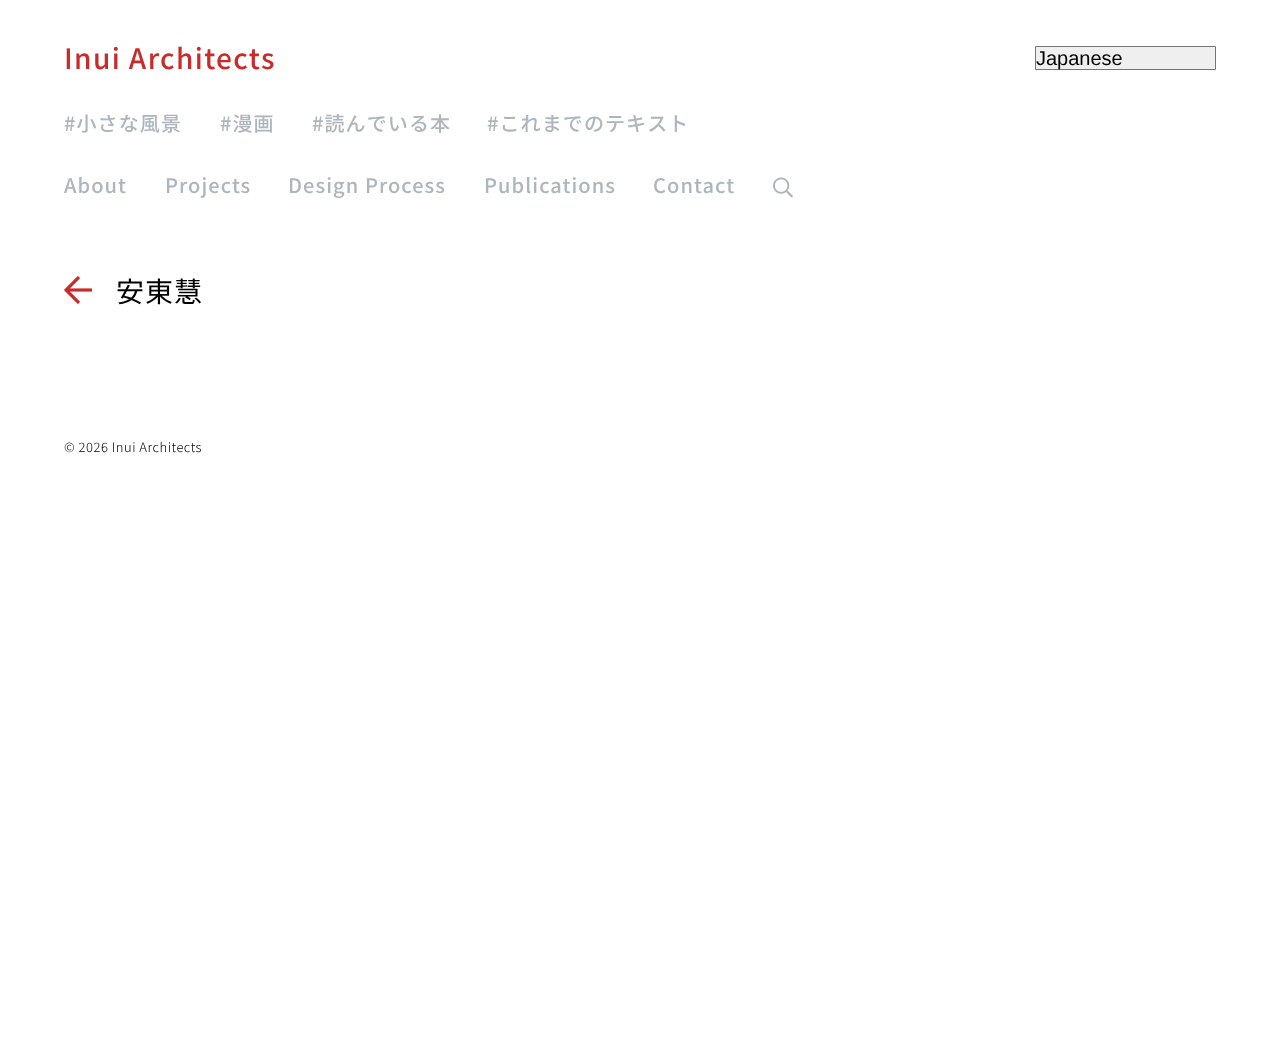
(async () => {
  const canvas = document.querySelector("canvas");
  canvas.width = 1280;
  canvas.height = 1052;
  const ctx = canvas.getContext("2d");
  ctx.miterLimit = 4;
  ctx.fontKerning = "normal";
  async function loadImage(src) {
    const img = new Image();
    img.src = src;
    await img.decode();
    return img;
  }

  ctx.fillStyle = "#ffffff";
  ctx.fillRect(0, 0, 1280, 1052);
  ctx.fillStyle = "#efefef";
  ctx.beginPath();
  ctx.rect(1035.5, 46.5, 180, 23);
  ctx.fill();
  ctx.strokeStyle = "#767676";
  ctx.stroke();
  ctx.drawImage(await loadImage("img/1.png"), 773, 177, 20, 21);
  ctx.drawImage(await loadImage("img/2.png"), 64, 276, 29, 28);
  ctx.letterSpacing = "1.4px";
  ctx.font = "500 28px Noto Sans JP";
  ctx.fillStyle = "#c92a2a";
  ctx.fillText("Inui Architects", 64, 69);
  ctx.letterSpacing = "0px";
  ctx.font = "20px Liberation Sans";
  ctx.fillStyle = "#000000";
  ctx.fillText("Japanese", 1036, 65);
  ctx.letterSpacing = "1.1px";
  ctx.font = "500 20px Noto Sans JP";
  ctx.fillStyle = "#adb5bd";
  for (const [text, x, y] of [
    ["#小さな風景", 64, 131],
    ["#漫画", 220, 131],
    ["#読んでいる本", 312, 131],
    ["#これまでのテキスト", 487, 131],
    ["About", 64, 193],
    ["Projects", 165, 193],
    ["Design Process", 288, 193],
    ["Publications", 484, 193],
    ["Contact", 653, 193],
  ]) {
    ctx.fillText(text, x, y);
  }
  ctx.letterSpacing = "1px";
  ctx.font = "28px Noto Sans JP";
  ctx.fillStyle = "#000000";
  ctx.fillText("安東慧", 116, 302);
  ctx.letterSpacing = "0.5px";
  ctx.font = "300 13px Noto Sans JP";
  ctx.fillText("© 2026 Inui Architects", 64, 452);
})();
